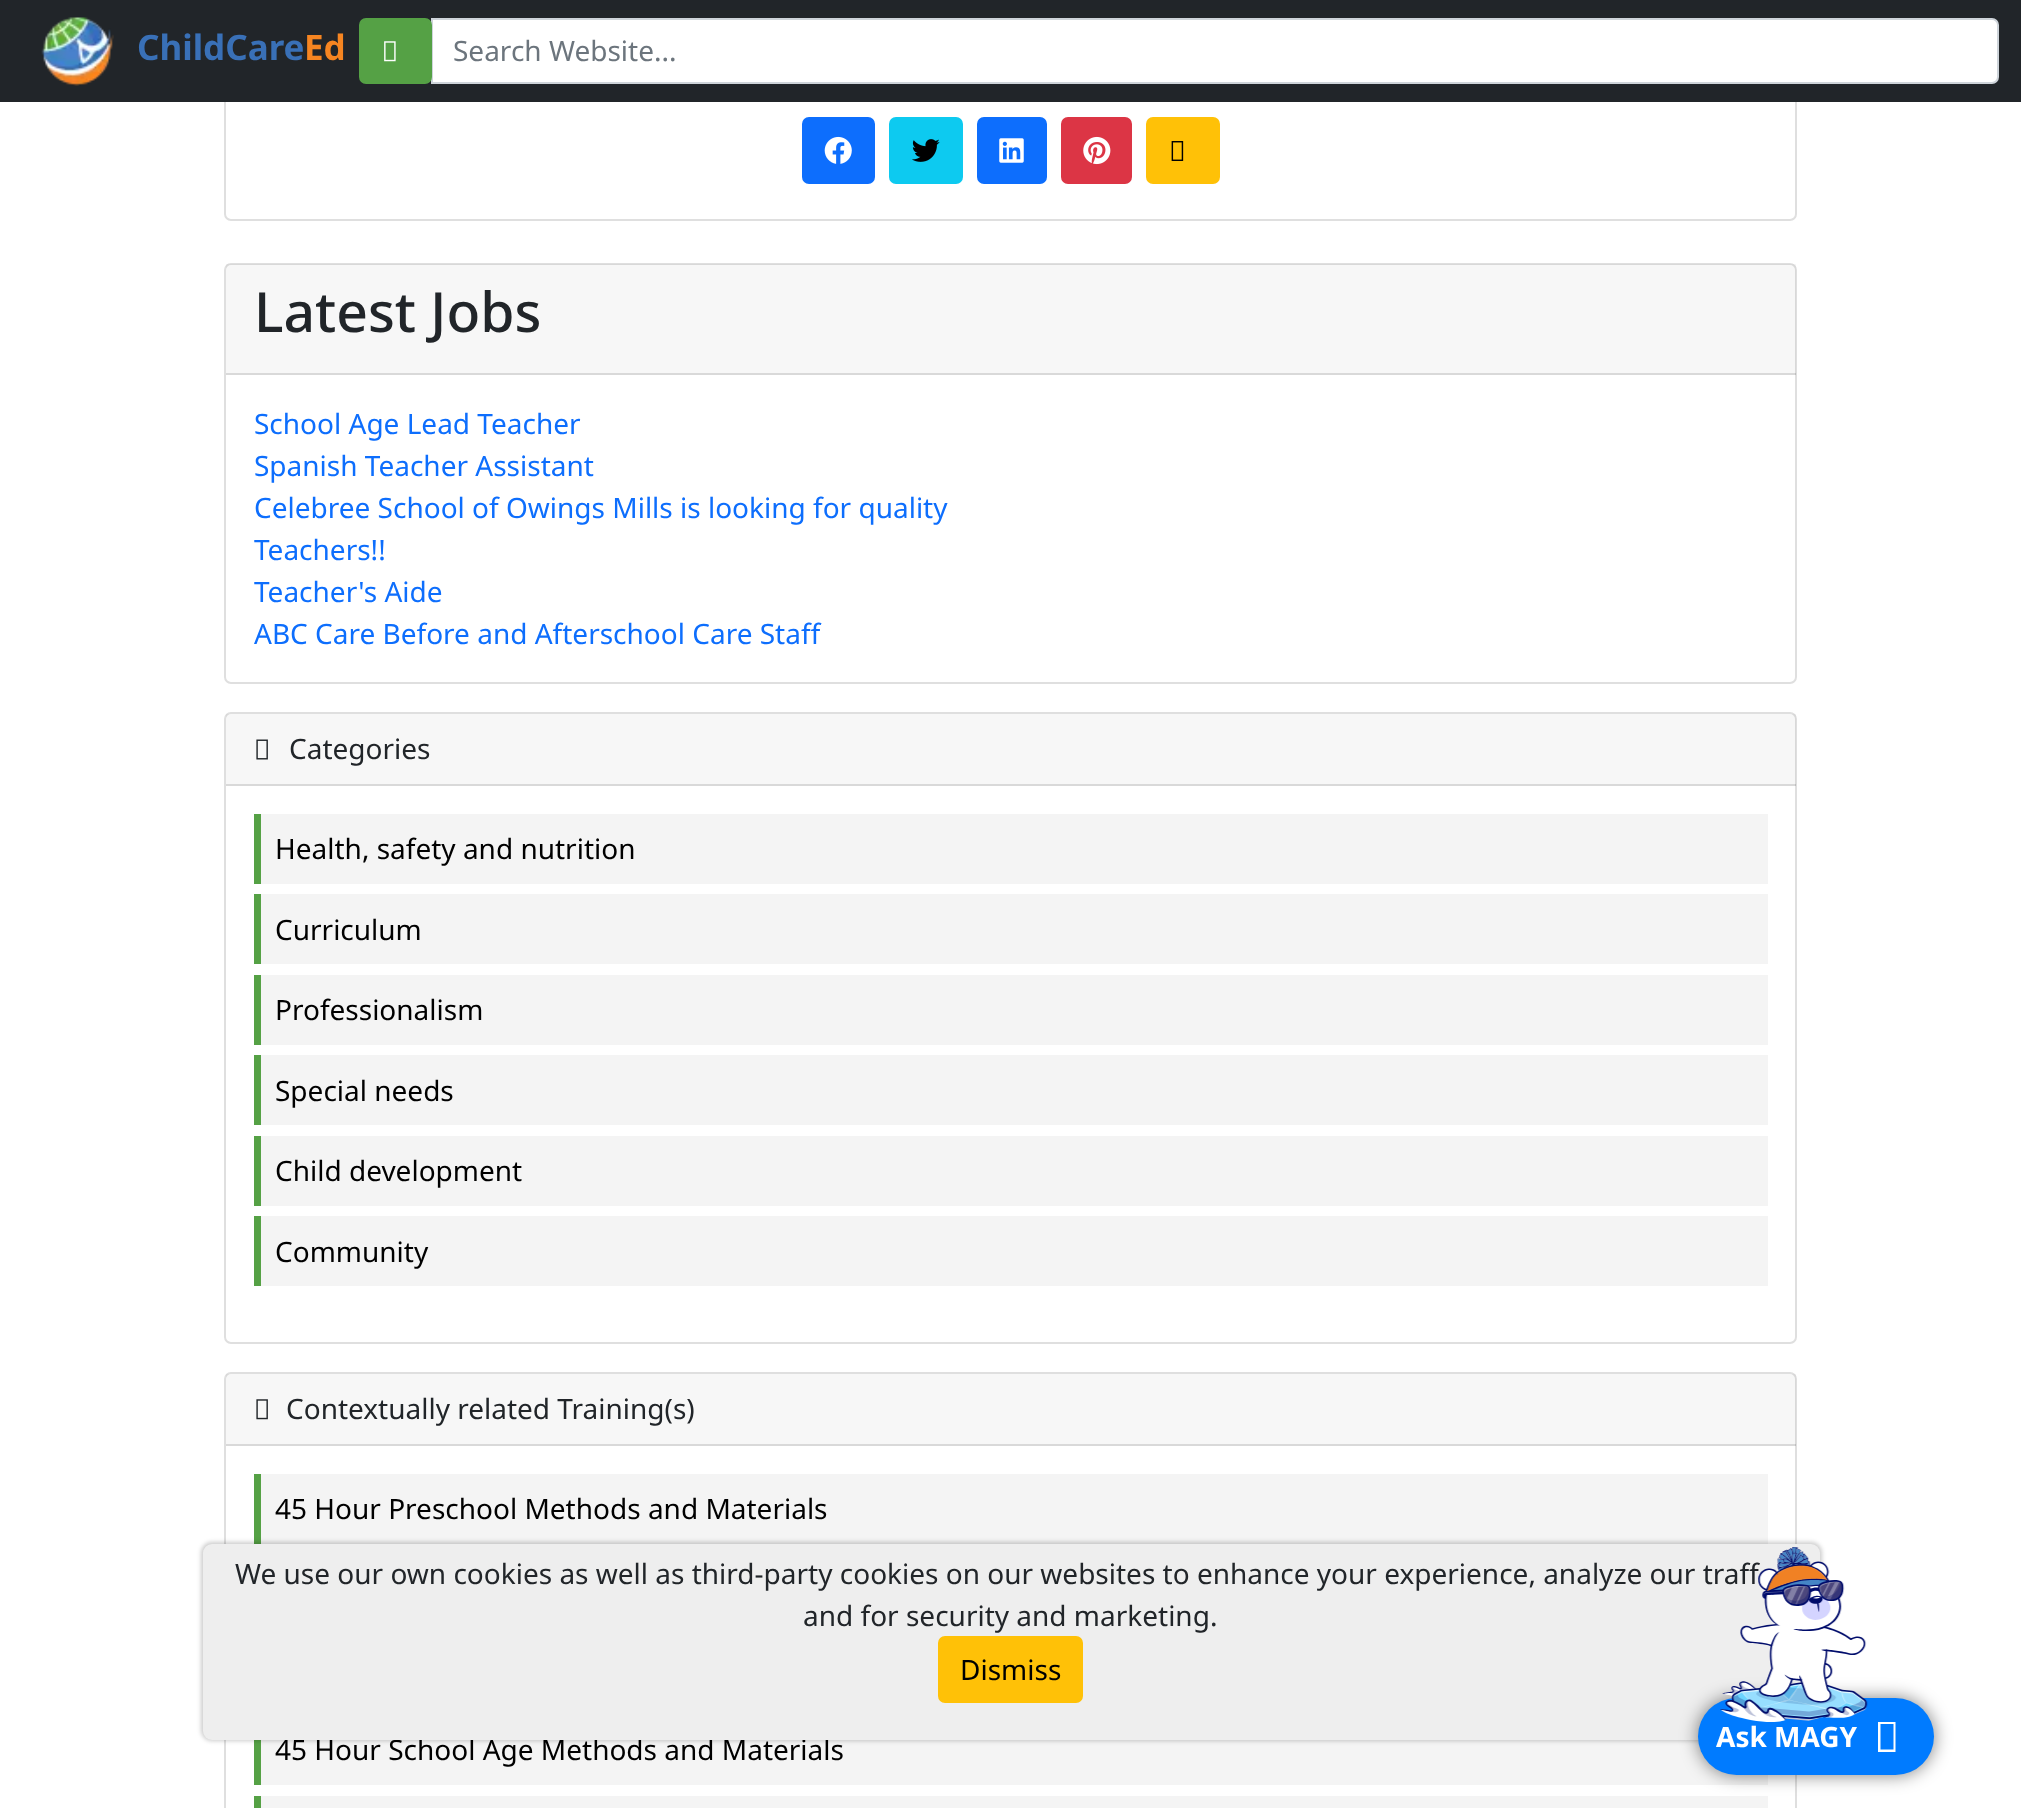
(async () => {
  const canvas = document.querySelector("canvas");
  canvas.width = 2021;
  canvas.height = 1808;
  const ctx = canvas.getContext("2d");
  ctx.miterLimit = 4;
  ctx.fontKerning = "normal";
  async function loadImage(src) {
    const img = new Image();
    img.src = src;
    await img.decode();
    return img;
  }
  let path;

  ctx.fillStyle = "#ffffff";
  ctx.fillRect(0, 0, 2021, 1808);
  ctx.beginPath();
  ctx.roundRect(225, -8, 1571, 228, 6);
  ctx.strokeStyle = "#dfdfdf";
  ctx.lineWidth = 2;
  ctx.stroke();
  ctx.fillStyle = "#212529";
  ctx.fillRect(0, 0, 2021, 102);
  ctx.drawImage(await loadImage("img/1.png"), 41, 17, 73, 69);
  ctx.fillStyle = "#ffffff";
  ctx.beginPath();
  ctx.roundRect(432, 19, 1566, 64, [0, 6, 6, 0]);
  ctx.fill();
  ctx.strokeStyle = "#ced4da";
  ctx.stroke();
  ctx.fillStyle = "#55a145";
  ctx.beginPath();
  ctx.roundRect(360, 19, 71, 64, 6);
  ctx.fill();
  ctx.strokeStyle = "#55a145";
  ctx.stroke();
  ctx.drawImage(await loadImage("img/2.png"), 384, 41, 12, 21);
  ctx.fillStyle = "#0d6efd";
  ctx.beginPath();
  ctx.roundRect(803, 118, 71, 65, 6);
  ctx.fill();
  ctx.strokeStyle = "#0d6efd";
  ctx.stroke();
  ctx.drawImage(await loadImage("img/3.png"), 824, 136, 28, 28);
  ctx.fillStyle = "#0dcaf0";
  ctx.beginPath();
  ctx.roundRect(890, 118, 72, 65, 6);
  ctx.fill();
  ctx.strokeStyle = "#0dcaf0";
  ctx.stroke();
  ctx.drawImage(await loadImage("img/4.png"), 912, 139, 28, 23);
  ctx.fillStyle = "#0d6efd";
  ctx.beginPath();
  ctx.roundRect(978, 118, 68, 65, 6);
  ctx.fill();
  ctx.strokeStyle = "#0d6efd";
  ctx.stroke();
  ctx.drawImage(await loadImage("img/5.png"), 999, 138, 25, 25);
  ctx.fillStyle = "#dc3545";
  ctx.beginPath();
  ctx.roundRect(1062, 118, 69, 65, 6);
  ctx.fill();
  ctx.strokeStyle = "#dc3545";
  ctx.stroke();
  ctx.drawImage(await loadImage("img/6.png"), 1083, 136, 28, 29);
  ctx.fillStyle = "#ffc107";
  ctx.beginPath();
  ctx.roundRect(1147, 118, 72, 65, 6);
  ctx.fill();
  ctx.strokeStyle = "#ffc107";
  ctx.stroke();
  ctx.drawImage(await loadImage("img/7.png"), 1171, 141, 13, 20);
  ctx.beginPath();
  ctx.roundRect(225, 264, 1571, 419, 6);
  ctx.strokeStyle = "#dfdfdf";
  ctx.stroke();
  ctx.fillStyle = "rgba(0, 0, 0, 0.03)";
  ctx.fillRect(226, 264, 1570, 111);
  ctx.fillStyle = "rgba(0, 0, 0, 0.12)";
  ctx.fillRect(226, 373, 1570, 2);
  ctx.beginPath();
  ctx.roundRect(225, 713, 1571, 630, 6);
  ctx.stroke();
  ctx.fillStyle = "rgba(0, 0, 0, 0.03)";
  ctx.fillRect(226, 714, 1570, 72);
  ctx.fillStyle = "rgba(0, 0, 0, 0.12)";
  ctx.fillRect(226, 784, 1570, 2);
  ctx.drawImage(await loadImage("img/8.png"), 256, 739, 12, 21);
  for (const [x, y, w, h, color] of [
    [261, 814, 1507, 70, "#f4f4f4"],
    [254, 814, 7, 70, "#55a145"],
    [261, 894, 1507, 70, "#f4f4f4"],
    [254, 894, 7, 70, "#55a145"],
    [261, 975, 1507, 70, "#f4f4f4"],
    [254, 975, 7, 70, "#55a145"],
    [261, 1055, 1507, 70, "#f4f4f4"],
    [254, 1055, 7, 70, "#55a145"],
    [261, 1136, 1507, 70, "#f4f4f4"],
    [254, 1136, 7, 70, "#55a145"],
    [261, 1216, 1507, 70, "#f4f4f4"],
    [254, 1216, 7, 70, "#55a145"],
  ]) {
    ctx.fillStyle = color;
    ctx.fillRect(x, y, w, h);
  }
  ctx.beginPath();
  ctx.roundRect(225, 1373, 1571, 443, 6);
  ctx.stroke();
  ctx.fillStyle = "rgba(0, 0, 0, 0.03)";
  ctx.fillRect(226, 1374, 1570, 72);
  ctx.fillStyle = "rgba(0, 0, 0, 0.12)";
  ctx.fillRect(226, 1444, 1570, 2);
  ctx.drawImage(await loadImage("img/9.png"), 256, 1399, 12, 21);
  for (const [x, y, w, h, color] of [
    [261, 1474, 1507, 70, "#f4f4f4"],
    [254, 1474, 7, 70, "#55a145"],
    [261, 1740, 1507, 45, "#f4f4f4"],
    [254, 1740, 7, 45, "#55a145"],
    [261, 1796, 1507, 12, "#f4f4f4"],
    [254, 1796, 7, 12, "#55a145"],
  ]) {
    ctx.fillStyle = color;
    ctx.fillRect(x, y, w, h);
  }
  ctx.fillStyle = "rgba(0, 0, 0, 0.2)";
  ctx.filter = "blur(2px)";
  ctx.beginPath();
  ctx.roundRect(201, 1542, 1621, 199, 11);
  ctx.fill();
  ctx.filter = "none";
  ctx.font = "bold 35px Noto Sans";
  ctx.fillStyle = "#3970b7";
  ctx.fillText("ChildCare", 137, 60);
  ctx.fillStyle = "#f68521";
  ctx.fillText("Ed", 304, 60);
  ctx.font = "28px Noto Sans";
  ctx.fillStyle = "#6c757d";
  ctx.fillText("Search Website...", 453, 61);
  ctx.font = "500 55.25px Noto Sans";
  ctx.fillStyle = "#212529";
  ctx.fillText("Latest Jobs", 254, 332);
  ctx.font = "28px Noto Sans";
  ctx.fillStyle = "#0d6efd";
  for (const [text, x, y] of [
    ["School Age Lead Teacher", 254, 434],
    ["Spanish Teacher Assistant", 254, 476],
    ["Celebree School of Owings Mills is looking for quality", 254, 518],
    ["Teachers!!", 254, 560],
    ["Teacher's Aide", 254, 602],
    ["ABC Care Before and Afterschool Care Staff", 254, 644],
  ]) {
    ctx.fillText(text, x, y);
  }
  ctx.fillStyle = "#212529";
  ctx.fillText("Categories", 289, 759);
  ctx.fillStyle = "#000000";
  for (const [text, x, y] of [
    ["Health, safety and nutrition", 275, 859],
    ["Curriculum", 275, 940],
    ["Professionalism", 275, 1020],
    ["Special needs", 275, 1101],
    ["Child development", 275, 1181],
    ["Community", 275, 1262],
  ]) {
    ctx.fillText(text, x, y);
  }
  ctx.fillStyle = "#212529";
  ctx.fillText("Contextually related Training(s)", 286, 1419);
  ctx.fillStyle = "#000000";
  ctx.fillText("45 Hour Preschool Methods and Materials", 275, 1519);
  ctx.fillText("45 Hour School Age Methods and Materials", 275, 1760);
  ctx.fillStyle = "#eeeeee";
  ctx.beginPath();
  ctx.roundRect(203, 1544, 1617, 196, 9);
  ctx.fill();
  ctx.fillStyle = "#212529";
  ctx.fillText("We use our own cookies as well as third-party cookies on our websites to enhance your experience, analyze our traff", 235, 1584);
  ctx.fillText("and for security and marketing.", 803, 1626);
  ctx.fillStyle = "#ffc107";
  ctx.beginPath();
  ctx.roundRect(939, 1637, 143, 65, 6);
  ctx.fill();
  ctx.strokeStyle = "#ffc107";
  ctx.stroke();
  ctx.fillStyle = "#000000";
  ctx.fillText("Dismiss", 960, 1680);
  ctx.fillStyle = "rgba(0, 0, 0, 0.5)";
  ctx.filter = "blur(9px)";
  ctx.beginPath();
  ctx.roundRect(1698, 1698, 236, 77, 38.5);
  ctx.fill();
  ctx.filter = "none";
  ctx.fillStyle = "#007bff";
  ctx.beginPath();
  ctx.roundRect(1698, 1698, 236, 77, 38.5);
  ctx.fill();
  ctx.drawImage(await loadImage("img/10.png"), 1720, 1547, 148, 175);
  ctx.font = "bold 28px Noto Sans";
  ctx.fillStyle = "#ffffff";
  ctx.fillText("Ask MAGY", 1716, 1747);
  path = new Path2D("M1878 1752V1722H1895.5V1752ZM1880.5 1749.5H1893.5V1724H1880.5Z");
  ctx.fill(path);
})();
